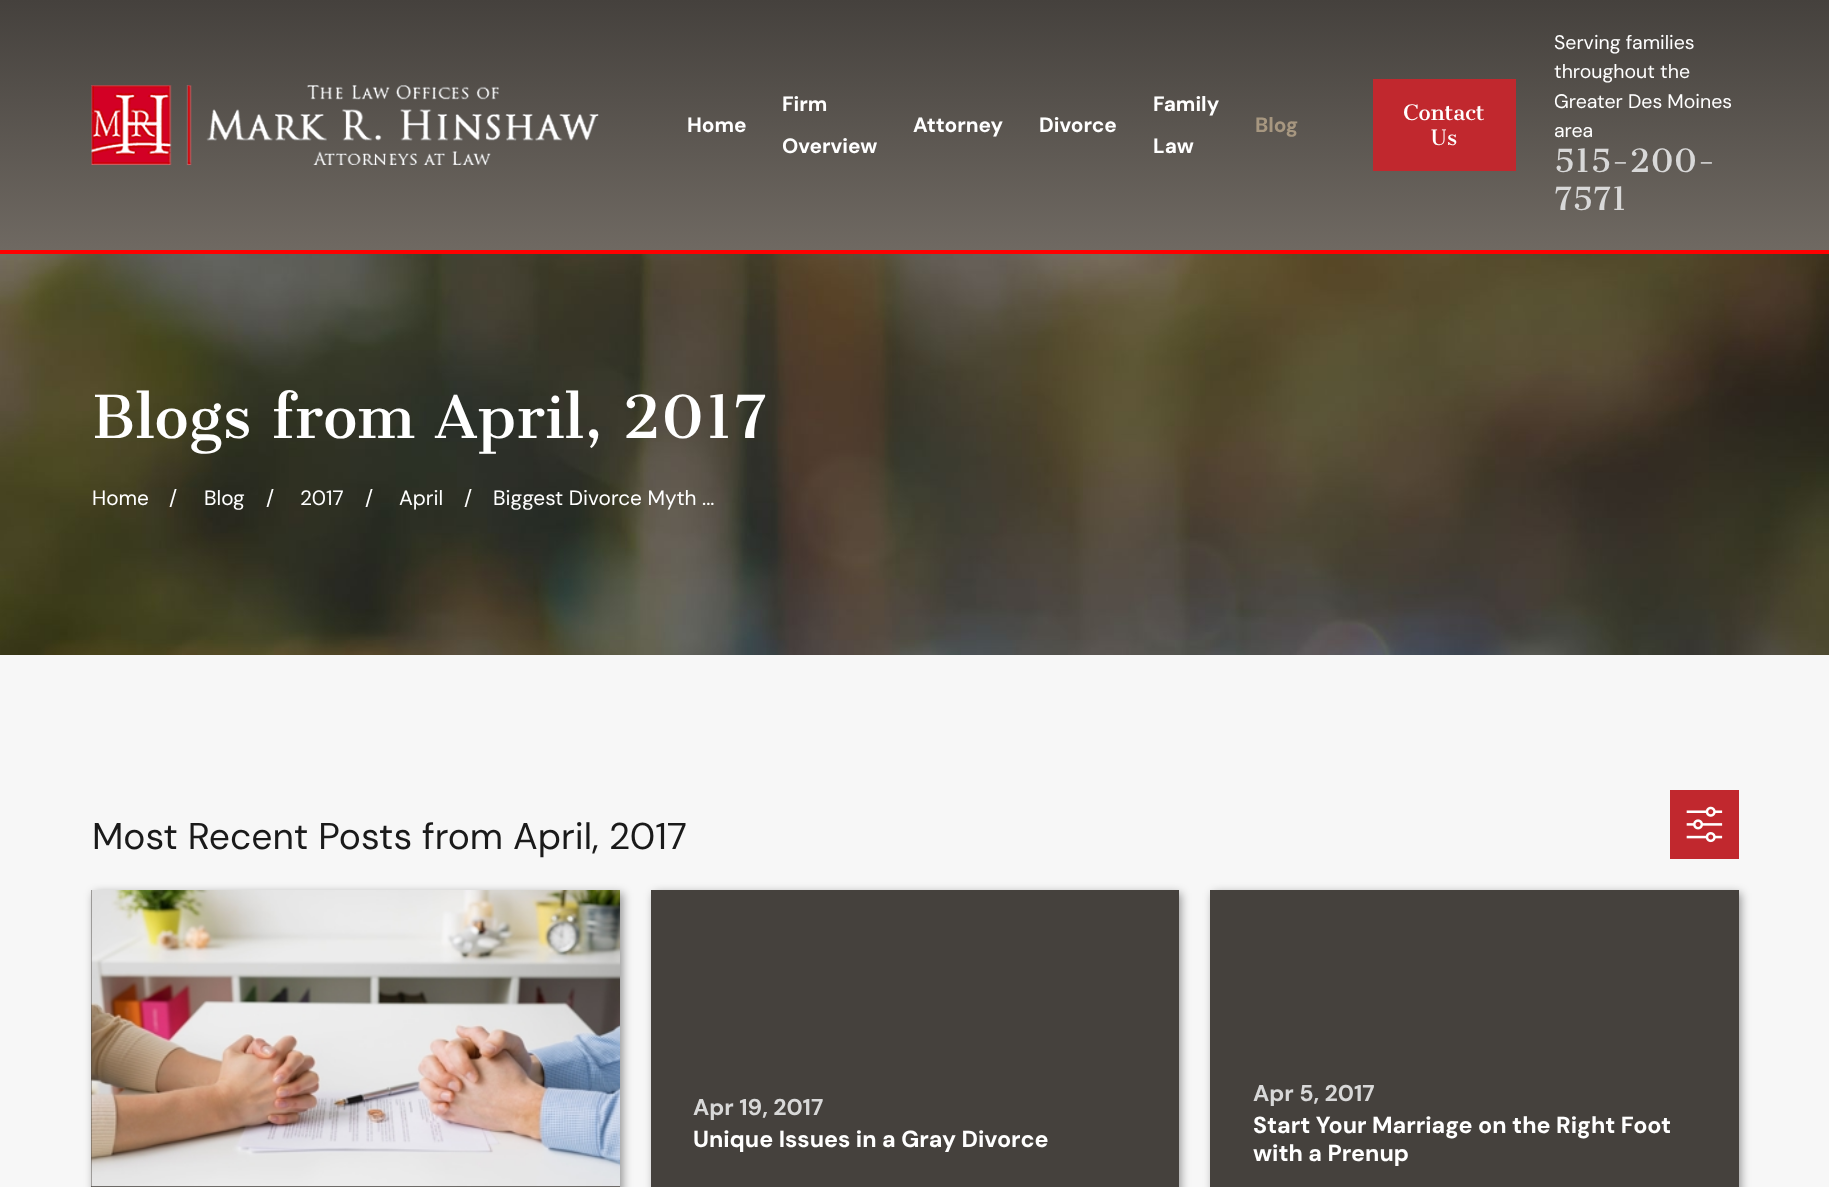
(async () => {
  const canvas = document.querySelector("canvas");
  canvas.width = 1829;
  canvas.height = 1187;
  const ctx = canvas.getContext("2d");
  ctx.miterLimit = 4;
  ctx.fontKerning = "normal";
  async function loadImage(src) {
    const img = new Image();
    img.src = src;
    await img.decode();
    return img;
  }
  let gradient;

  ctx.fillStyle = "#f7f7f7";
  ctx.fillRect(0, 0, 1829, 1187);
  gradient = ctx.createLinearGradient(915, 0, 915, 250);
  gradient.addColorStop(0, "#45413d");
  gradient.addColorStop(1, "#6f6962");
  ctx.fillStyle = gradient;
  ctx.fillRect(0, 0, 1829, 250);
  ctx.fillStyle = "#ff0000";
  ctx.fillRect(0, 250, 1829, 4);
  ctx.drawImage(await loadImage("img/1.png"), 91, 85, 508, 80);
  ctx.fillStyle = "#c1282e";
  ctx.fillRect(1373, 79, 143, 92);
  ctx.drawImage(await loadImage("img/2.png"), 0, 254, 1829, 401);
  ctx.fillRect(1670, 790, 69, 69);
  ctx.drawImage(await loadImage("img/3.png"), 1686, 806, 37, 37);
  ctx.fillStyle = "rgba(0, 0, 0, 0.4)";
  ctx.filter = "blur(5px)";
  ctx.beginPath();
  ctx.rect(94, 893, 529, 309);
  ctx.fill();
  ctx.filter = "none";
  ctx.fillStyle = "#45413d";
  ctx.fillRect(91, 890, 529, 297);
  ctx.drawImage(await loadImage("img/4.png"), 91, 890, 529, 297);
  ctx.fillStyle = "rgba(0, 0, 0, 0.4)";
  ctx.filter = "blur(5px)";
  ctx.beginPath();
  ctx.rect(654, 893, 527, 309);
  ctx.fill();
  ctx.filter = "none";
  ctx.fillStyle = "#45413d";
  ctx.fillRect(651, 890, 528, 297);
  ctx.fillStyle = "rgba(0, 0, 0, 0.4)";
  ctx.filter = "blur(5px)";
  ctx.beginPath();
  ctx.rect(1213, 893, 528, 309);
  ctx.fill();
  ctx.filter = "none";
  ctx.fillStyle = "#45413d";
  ctx.fillRect(1210, 890, 529, 297);
  ctx.font = "bold 20.8px DM Sans";
  ctx.fillStyle = "#ffffff";
  for (const [text, x, y] of [
    ["Home", 687, 132],
    ["Firm", 782, 111],
    ["Overview", 782, 153],
    ["Attorney", 913, 132],
    ["Divorce", 1039, 132],
    ["Family", 1153, 111],
    ["Law", 1153, 153],
  ]) {
    ctx.fillText(text, x, y);
  }
  ctx.fillStyle = "#a79780";
  ctx.fillText("Blog", 1255, 132);
  ctx.font = "20.8px Cantata One";
  ctx.fillStyle = "#ffffff";
  ctx.fillText("Contact", 1403, 120);
  ctx.fillText("Us", 1431, 145);
  ctx.font = "19.5px DM Sans";
  for (const [text, x, y] of [
    ["Serving families", 1554, 49],
    ["throughout the", 1554, 78],
    ["Greater Des Moines", 1554, 108],
    ["area", 1554, 137],
  ]) {
    ctx.fillText(text, x, y);
  }
  ctx.font = "31.25px Cantata One";
  ctx.fillStyle = "#d8d8d8";
  ctx.fillText("515-200-", 1554, 172);
  ctx.fillText("7571", 1554, 210);
  ctx.font = "57.9px Cantata One";
  ctx.fillStyle = "#ffffff";
  ctx.fillText("Blogs from April, 2017", 92, 438);
  ctx.font = "20.8px DM Sans";
  for (const [text, x, y] of [
    ["Home", 92, 505],
    ["/", 169, 505],
    ["Blog", 204, 505],
    ["/", 266, 505],
    ["2017", 300, 505],
    ["/", 365, 505],
    ["April", 399, 505],
    ["/", 464, 505],
    ["Biggest Divorce Myth ...", 493, 505],
  ]) {
    ctx.fillText(text, x, y);
  }
  ctx.font = "37.25px DM Sans";
  ctx.fillStyle = "#1a1a1a";
  ctx.fillText("Most Recent Posts from April, 2017", 92, 849);
  ctx.font = "bold 23px DM Sans";
  ctx.fillStyle = "#d8d8d8";
  ctx.fillText("Apr 19, 2017", 693, 1115);
  ctx.font = "bold 23.25px DM Sans";
  ctx.fillStyle = "#ffffff";
  ctx.fillText("Unique Issues in a Gray Divorce", 693, 1147);
  ctx.font = "bold 23px DM Sans";
  ctx.fillStyle = "#d8d8d8";
  ctx.fillText("Apr 5, 2017", 1253, 1101);
  ctx.font = "bold 23.25px DM Sans";
  ctx.fillStyle = "#ffffff";
  ctx.fillText("Start Your Marriage on the Right Foot", 1253, 1133);
  ctx.fillText("with a Prenup", 1253, 1161);
})();
